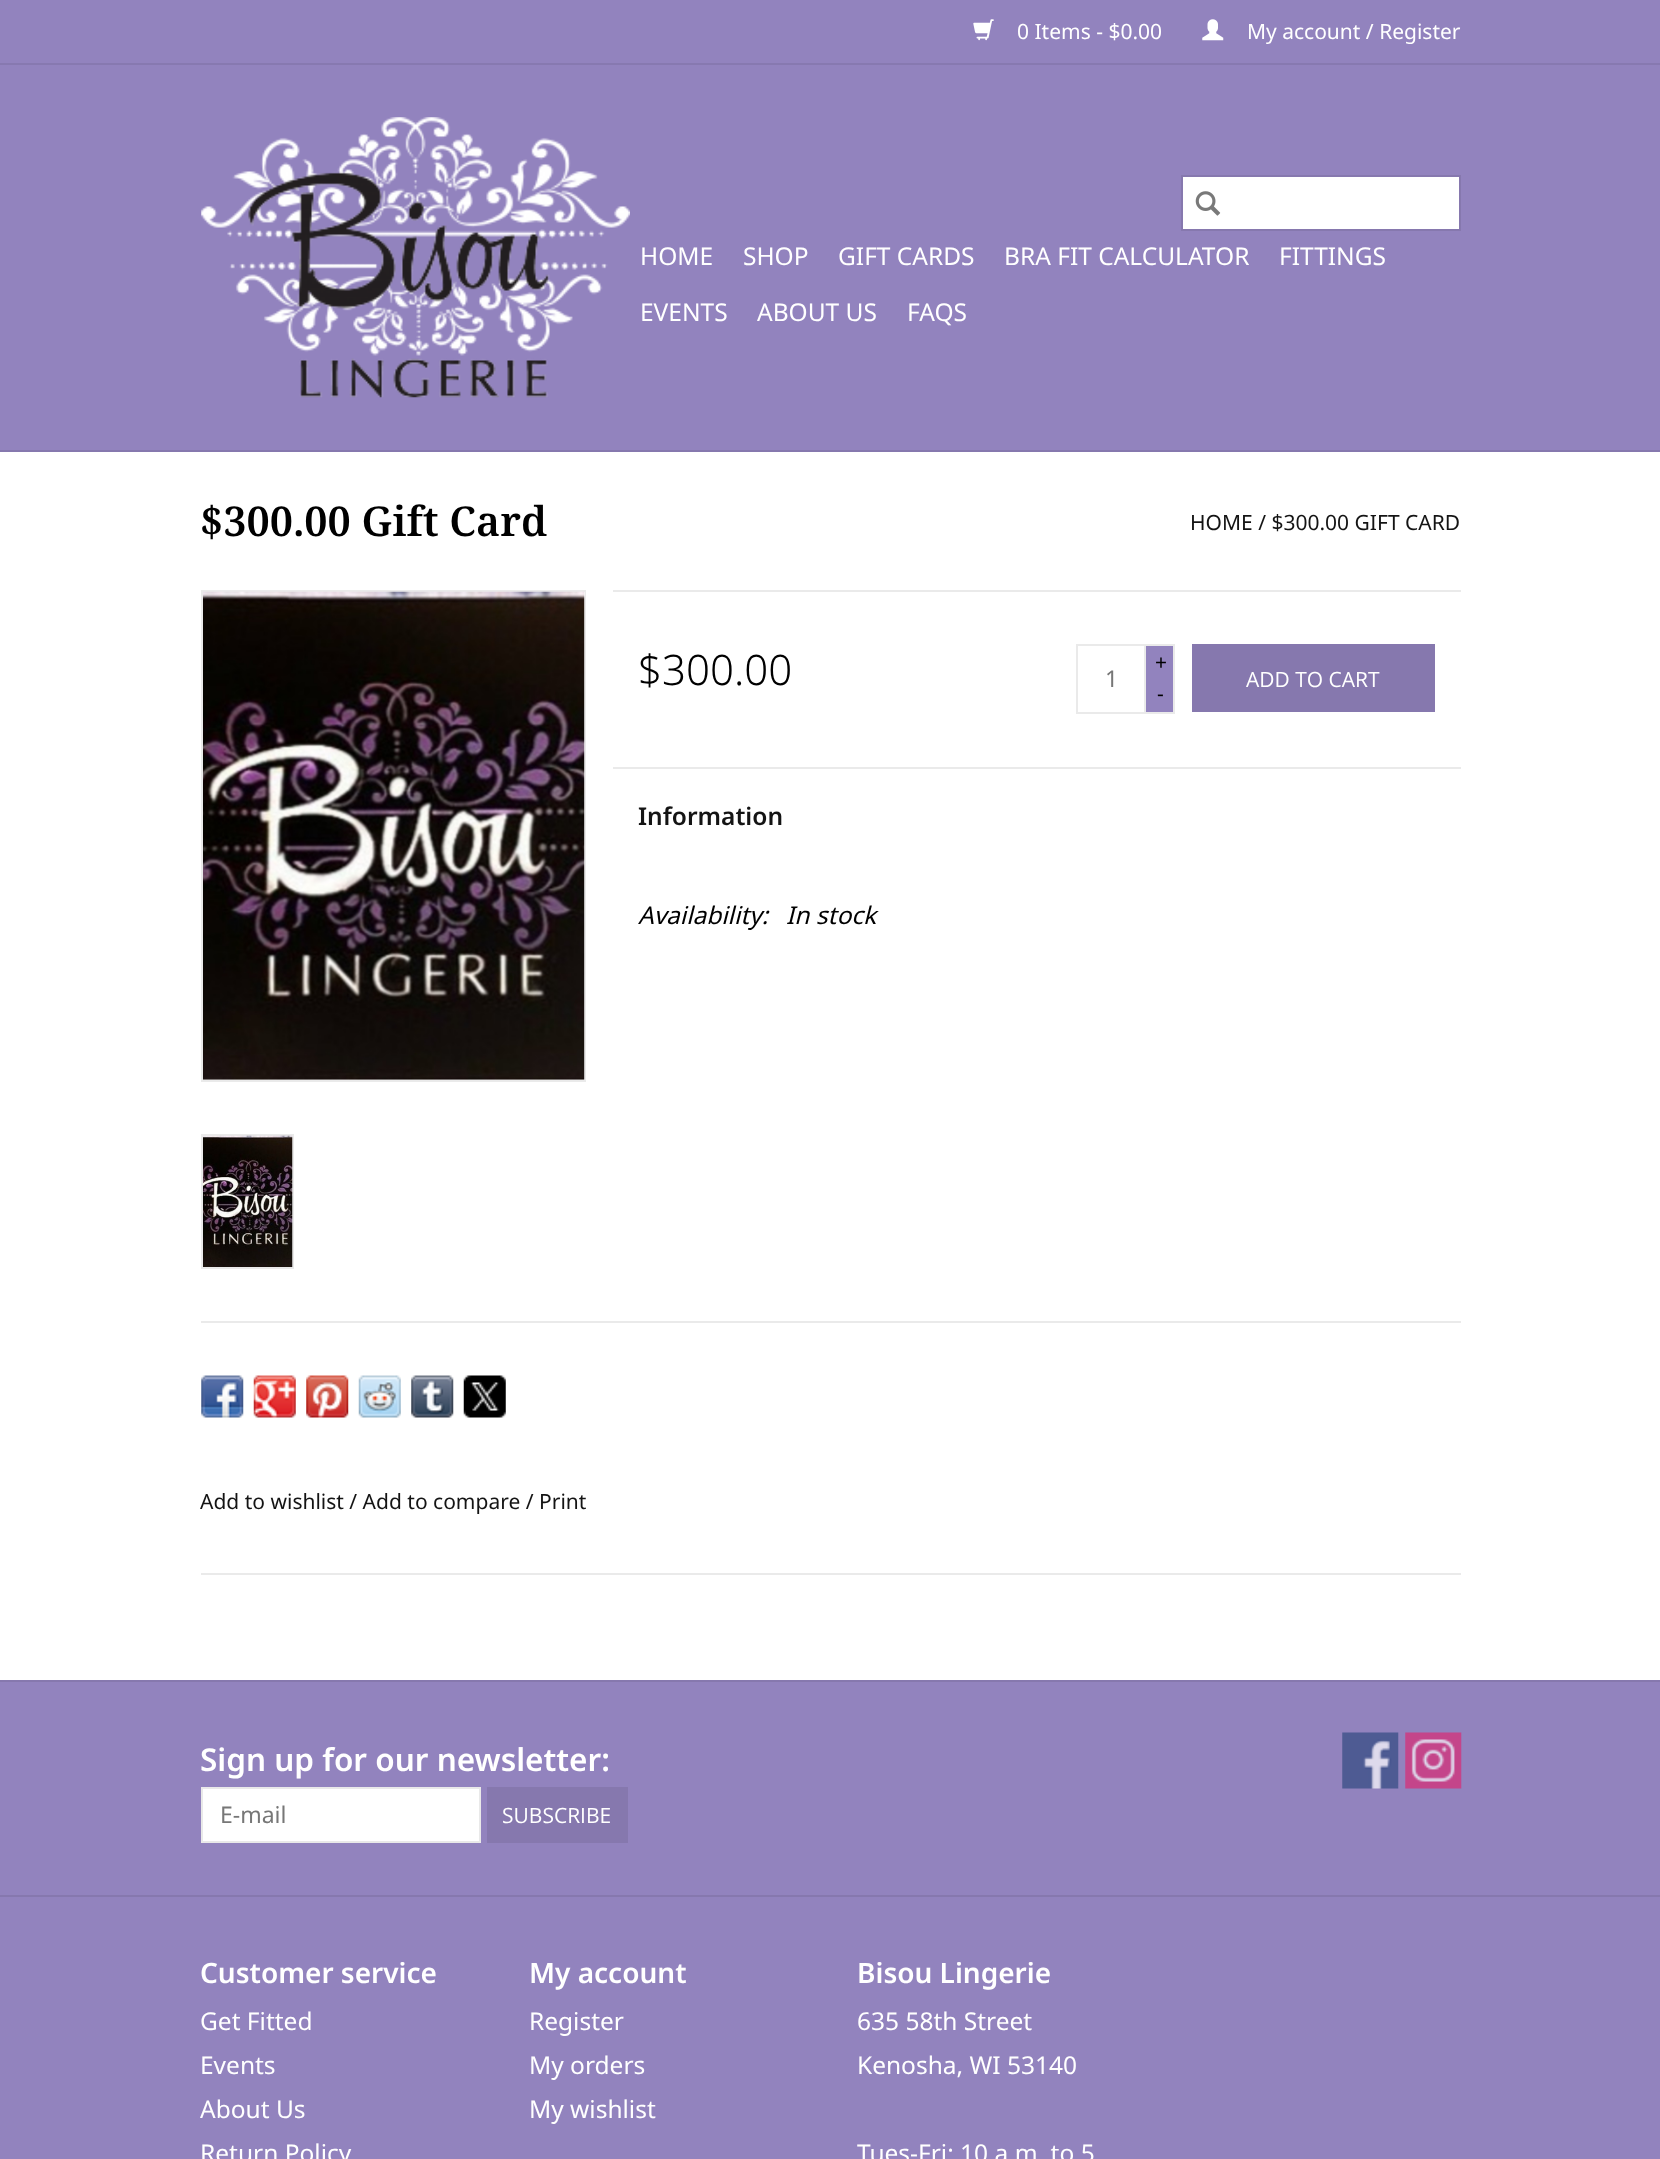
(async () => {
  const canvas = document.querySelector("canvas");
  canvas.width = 1660;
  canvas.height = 2159;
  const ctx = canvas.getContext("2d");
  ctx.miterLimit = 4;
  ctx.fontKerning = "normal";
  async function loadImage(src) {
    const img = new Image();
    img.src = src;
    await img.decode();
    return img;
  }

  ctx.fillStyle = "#ffffff";
  ctx.fillRect(0, 0, 1660, 2159);
  for (const [x, y, w, h, color] of [
    [0, 0, 1660, 450, "#9283be"],
    [0, 450, 1660, 2, "#8678ae"],
    [0, 63, 1660, 2, "#8779b0"],
  ]) {
    ctx.fillStyle = color;
    ctx.fillRect(x, y, w, h);
  }
  ctx.drawImage(await loadImage("img/1.png"), 973, 19, 21, 22);
  ctx.drawImage(await loadImage("img/2.png"), 1202, 19, 22, 22);
  ctx.drawImage(await loadImage("img/3.png"), 201, 117, 429, 281);
  ctx.fillStyle = "#ffffff";
  ctx.beginPath();
  ctx.rect(1182, 176, 278, 54);
  ctx.fill();
  ctx.strokeStyle = "#8678ae";
  ctx.lineWidth = 2;
  ctx.stroke();
  ctx.drawImage(await loadImage("img/4.png"), 1195, 191, 26, 25);
  ctx.strokeStyle = "#eaeaea";
  ctx.strokeRect(202, 591, 383, 490);
  ctx.fillStyle = "#f7f7f7";
  ctx.fillRect(203, 592, 382, 488);
  ctx.drawImage(await loadImage("img/5.png"), 203, 591, 382, 489);
  ctx.strokeRect(202, 1135, 91, 133);
  ctx.drawImage(await loadImage("img/6.png"), 203, 1135, 90, 132);
  ctx.fillStyle = "#eaeaea";
  ctx.fillRect(613, 590, 848, 2);
  ctx.strokeRect(1077, 645, 68, 68);
  for (const [x, y, w, h, color] of [
    [1146, 646, 27, 66, "#9283be"],
    [1146, 644, 28, 2, "#eaeaea"],
    [1173, 644, 2, 70, "#eaeaea"],
    [1146, 712, 28, 2, "#eaeaea"],
    [1192, 644, 243, 68, "#8678ae"],
    [613, 767, 848, 2, "#eaeaea"],
    [201, 1321, 1260, 2, "#eaeaea"],
    [201, 1573, 1260, 2, "#eaeaea"],
  ]) {
    ctx.fillStyle = color;
    ctx.fillRect(x, y, w, h);
  }
  ctx.drawImage(await loadImage("img/7.png"), 201, 1375, 43, 43);
  ctx.drawImage(await loadImage("img/8.png"), 253, 1375, 43, 43);
  ctx.drawImage(await loadImage("img/9.png"), 306, 1375, 43, 43);
  ctx.drawImage(await loadImage("img/10.png"), 358, 1375, 43, 43);
  ctx.drawImage(await loadImage("img/11.png"), 411, 1375, 43, 43);
  ctx.drawImage(await loadImage("img/12.png"), 463, 1375, 43, 43);
  ctx.fillStyle = "#9283be";
  ctx.fillRect(0, 1682, 1660, 477);
  ctx.fillStyle = "#8678ae";
  ctx.fillRect(0, 1680, 1660, 2);
  ctx.fillStyle = "#ffffff";
  ctx.beginPath();
  ctx.rect(202, 1788, 278, 54);
  ctx.fill();
  ctx.strokeStyle = "#e9e9e9";
  ctx.stroke();
  ctx.fillStyle = "#8678ae";
  ctx.fillRect(487, 1787, 141, 56);
  ctx.drawImage(await loadImage("img/13.png"), 1342, 1732, 57, 57);
  ctx.drawImage(await loadImage("img/14.png"), 1405, 1732, 57, 57);
  ctx.fillRect(0, 1895, 1660, 2);
  ctx.font = "21px Noto Sans";
  ctx.fillStyle = "#ffffff";
  ctx.fillText("0 Items - $0.00", 1017, 39);
  ctx.fillText("My account / Register", 1247, 39);
  ctx.font = "24.5px Noto Sans";
  for (const [text, x, y] of [
    ["HOME", 640, 265],
    ["SHOP", 743, 265],
    ["GIFT CARDS", 838, 265],
    ["BRA FIT CALCULATOR", 1004, 265],
    ["FITTINGS", 1279, 265],
    ["EVENTS", 640, 321],
    ["ABOUT US", 757, 321],
    ["FAQS", 907, 321],
  ]) {
    ctx.fillText(text, x, y);
  }
  ctx.font = "600 41.25px Noto Serif";
  ctx.fillStyle = "#000000";
  ctx.fillText("$300.00 Gift Card", 200, 536);
  ctx.font = "21px Noto Sans";
  ctx.fillStyle = "#141414";
  ctx.fillText("HOME / $300.00 GIFT CARD", 1190, 530);
  ctx.font = "300 42px Noto Sans";
  ctx.fillStyle = "#000000";
  ctx.fillText("$300.00", 638, 685);
  ctx.font = "23px Noto Sans";
  ctx.fillStyle = "#777777";
  ctx.fillText("1", 1105, 687);
  ctx.font = "21px Noto Sans";
  ctx.fillStyle = "#000000";
  ctx.fillText("+", 1155, 670);
  ctx.fillText("-", 1157, 701);
  ctx.font = "21px Open Sans";
  ctx.fillStyle = "#ffffff";
  ctx.fillText("ADD TO CART", 1246, 687);
  ctx.font = "600 24.5px Noto Sans";
  ctx.fillStyle = "#141414";
  ctx.fillText("Information", 638, 825);
  ctx.font = "italic 24.5px Noto Sans";
  ctx.fillStyle = "#000000";
  ctx.fillText("Availability:", 638, 924);
  ctx.fillText("In stock", 786, 924);
  ctx.font = "21px Noto Sans";
  ctx.fillStyle = "#141414";
  ctx.fillText("Add to wishlist / Add to compare / Print", 200, 1509);
  ctx.font = "600 31.5px Noto Sans";
  ctx.fillStyle = "#ffffff";
  ctx.fillText("Sign up for our newsletter:", 200, 1771);
  ctx.font = "23px Noto Sans";
  ctx.fillStyle = "#777777";
  ctx.fillText("E-mail", 220, 1823);
  ctx.font = "21px Open Sans";
  ctx.fillStyle = "#ffffff";
  ctx.fillText("SUBSCRIBE", 502, 1823);
  ctx.font = "600 28px Noto Sans";
  ctx.fillText("Customer service", 200, 1983);
  ctx.font = "24.5px Noto Sans";
  for (const [text, x, y] of [
    ["Get Fitted", 200, 2030],
    ["Events", 200, 2074],
    ["About Us", 200, 2118],
    ["Return Policy", 200, 2162],
  ]) {
    ctx.fillText(text, x, y);
  }
  ctx.font = "600 28px Noto Sans";
  ctx.fillText("My account", 529, 1983);
  ctx.font = "24.5px Noto Sans";
  for (const [text, x, y] of [
    ["Register", 529, 2030],
    ["My orders", 529, 2074],
    ["My wishlist", 529, 2118],
  ]) {
    ctx.fillText(text, x, y);
  }
  ctx.font = "600 28px Noto Sans";
  ctx.fillText("Bisou Lingerie", 857, 1983);
  ctx.font = "24.5px Noto Sans";
  for (const [text, x, y] of [
    ["635 58th Street", 857, 2030],
    ["Kenosha, WI 53140", 857, 2074],
    ["Tues-Fri: 10 a.m. to 5", 857, 2162],
  ]) {
    ctx.fillText(text, x, y);
  }
})();
